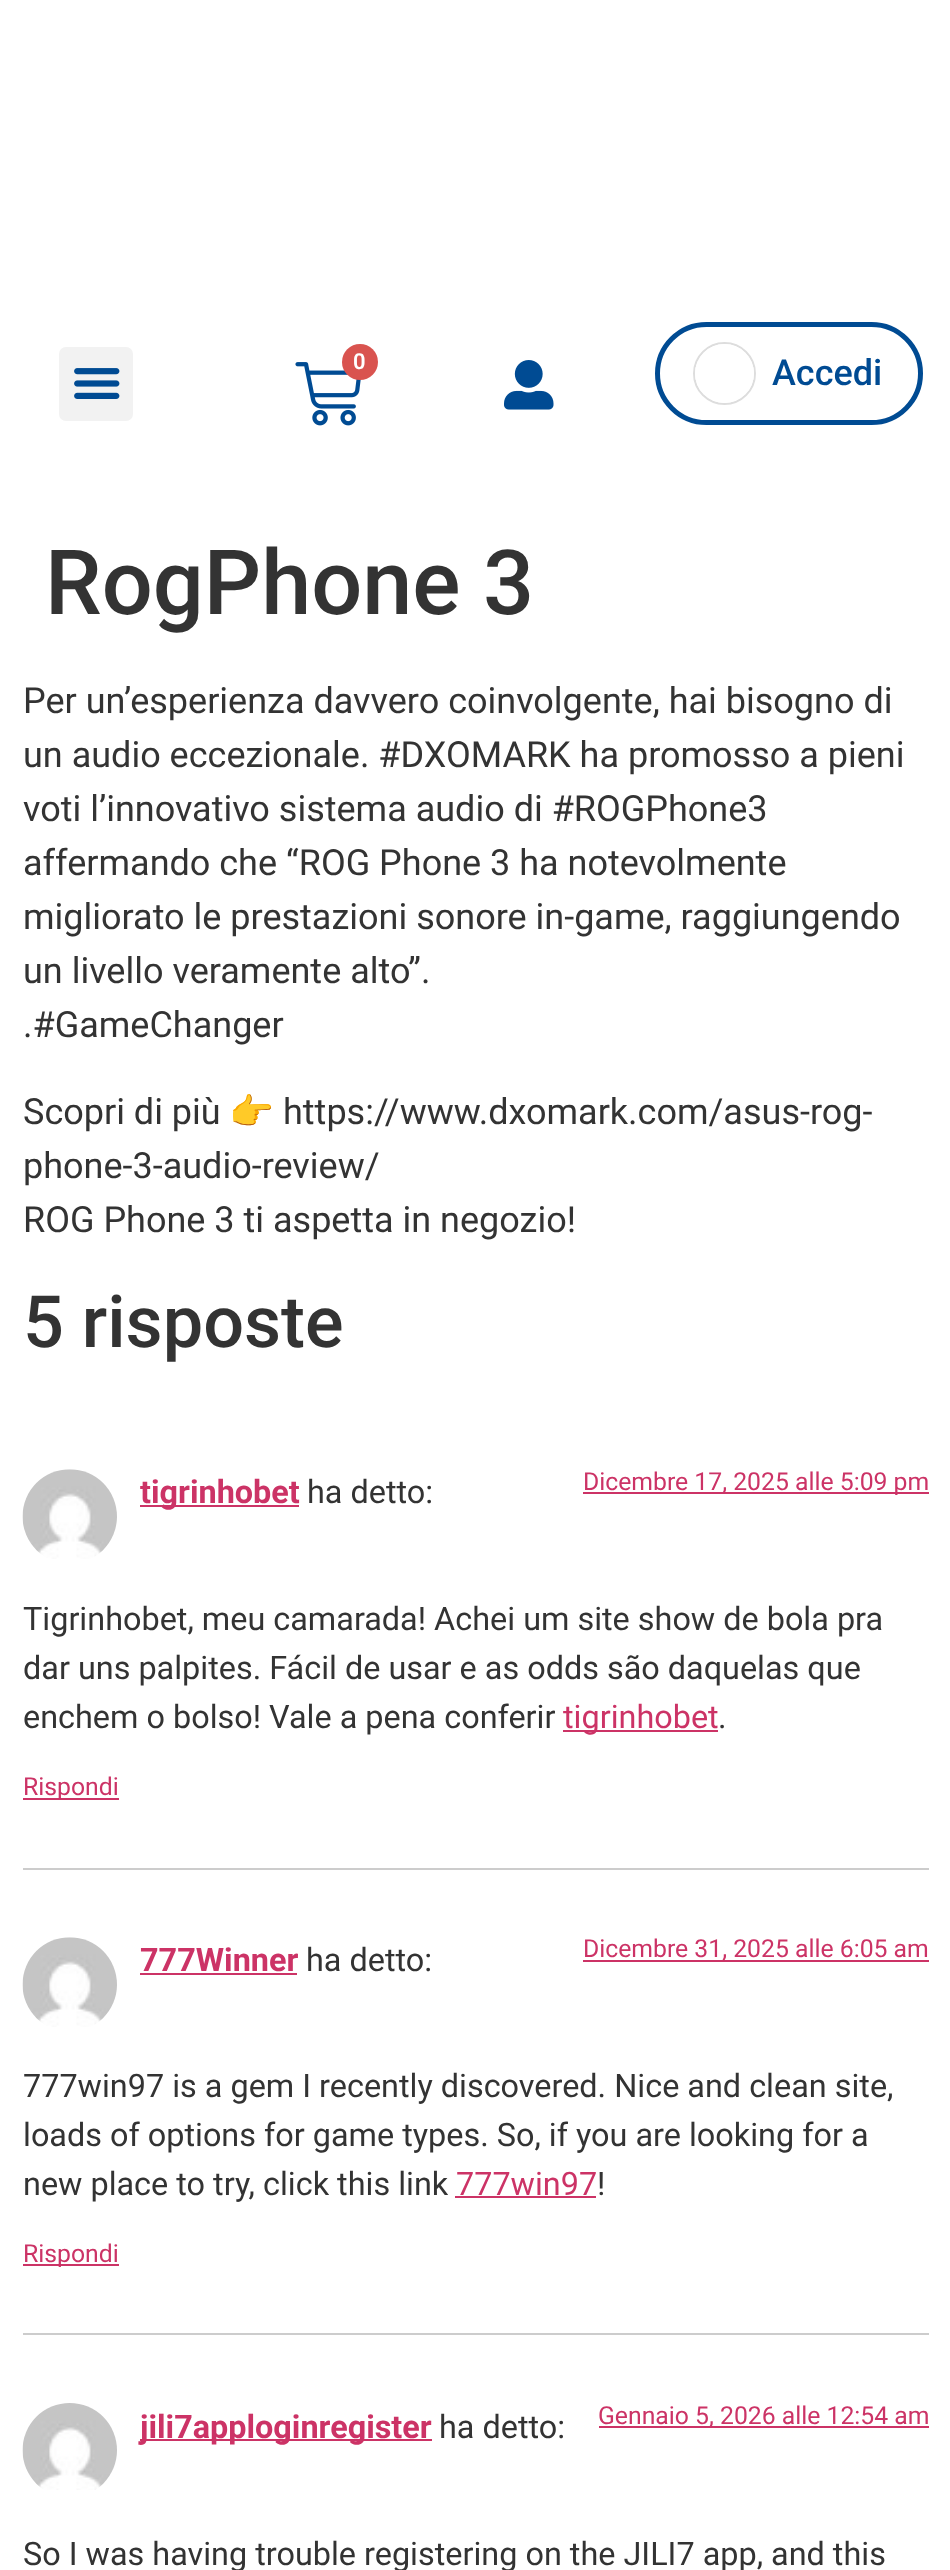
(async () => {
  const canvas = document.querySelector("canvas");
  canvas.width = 950;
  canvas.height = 2570;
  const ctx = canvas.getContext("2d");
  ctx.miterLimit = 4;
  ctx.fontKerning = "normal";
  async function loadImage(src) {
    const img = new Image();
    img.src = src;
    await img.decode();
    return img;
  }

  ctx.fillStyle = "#ffffff";
  ctx.fillRect(0, 0, 950, 2570);
  ctx.fillStyle = "#f2f2f2";
  ctx.beginPath();
  ctx.roundRect(59, 347, 74, 74, 7);
  ctx.fill();
  ctx.drawImage(await loadImage("img/1.png"), 74, 368, 46, 31);
  ctx.drawImage(await loadImage("img/2.png"), 295, 362, 66, 64);
  ctx.fillStyle = "#d9534f";
  ctx.beginPath();
  ctx.arc(360, 362, 18, 0, Math.PI * 2);
  ctx.fill();
  ctx.drawImage(await loadImage("img/3.png"), 504, 360, 50, 50);
  ctx.beginPath();
  ctx.roundRect(657.5, 324.5, 263, 98, 49);
  ctx.strokeStyle = "#004b93";
  ctx.lineWidth = 5;
  ctx.stroke();
  ctx.beginPath();
  ctx.arc(724.5, 373.5, 30.5, 0, Math.PI * 2);
  ctx.strokeStyle = "#dddddd";
  ctx.lineWidth = 2;
  ctx.stroke();
  ctx.fillStyle = "#ffffff";
  ctx.beginPath();
  ctx.arc(724.5, 373.5, 29.5, 0, Math.PI * 2);
  ctx.fill();
  ctx.fillStyle = "#cccccc";
  ctx.fillRect(23, 1868, 906, 2);
  ctx.drawImage(await loadImage("img/4.png"), 22, 1469, 95, 90);
  for (const [x, y, w, h, color] of [
    [140, 1505, 159, 2, "#cc3366"],
    [583, 1492, 346, 2, "#cc3366"],
    [563, 1730, 155, 2, "#cc3366"],
    [23, 1798, 96, 2, "#cc3366"],
    [23, 2333, 906, 2, "#cccccc"],
  ]) {
    ctx.fillStyle = color;
    ctx.fillRect(x, y, w, h);
  }
  ctx.drawImage(await loadImage("img/5.png"), 22, 1937, 95, 90);
  for (const [x, y, w, h, color] of [
    [140, 1973, 157, 2, "#cc3366"],
    [583, 1960, 346, 2, "#cc3366"],
    [455, 2196, 141, 2, "#cc3366"],
    [23, 2264, 96, 2, "#cc3366"],
  ]) {
    ctx.fillStyle = color;
    ctx.fillRect(x, y, w, h);
  }
  ctx.drawImage(await loadImage("img/6.png"), 22, 2403, 95, 87);
  ctx.fillRect(140, 2439, 292, 2);
  ctx.fillRect(599, 2426, 330, 2);
  ctx.font = "600 22px Roboto";
  ctx.fillStyle = "#ffffff";
  ctx.fillText("0", 353, 369);
  ctx.font = "500 36px Roboto";
  ctx.fillStyle = "#004b93";
  ctx.fillText("Accedi", 772, 385);
  ctx.font = "500 90px Roboto";
  ctx.fillStyle = "#333333";
  ctx.fillText("RogPhone 3", 45, 614);
  ctx.font = "36px Roboto";
  for (const [text, x, y] of [
    ["Per un’esperienza davvero coinvolgente, hai bisogno di", 23, 713],
    ["un audio eccezionale. #DXOMARK ha promosso a pieni", 23, 767],
    ["voti l’innovativo sistema audio di #ROGPhone3", 23, 821],
    ["affermando che “ROG Phone 3 ha notevolmente", 23, 875],
    ["migliorato le prestazioni sonore in-game, raggiungendo", 23, 929],
    ["un livello veramente alto”.", 23, 983],
    [".#GameChanger", 23, 1037],
    ["Scopri di più", 23, 1124],
  ]) {
    ctx.fillText(text, x, y);
  }
  ctx.font = "36px Noto Color Emoji";
  ctx.fillText("👉", 229, 1124);
  ctx.font = "36px Roboto";
  for (const [text, x, y] of [
    ["https://www.dxomark.com/asus-rog-", 283, 1124],
    ["phone-3-audio-review/", 23, 1178],
    ["ROG Phone 3 ti aspetta in negozio!", 23, 1232],
  ]) {
    ctx.fillText(text, x, y);
  }
  ctx.font = "500 72px Roboto";
  ctx.fillText("5 risposte", 23, 1347);
  ctx.font = "bold 32.4px Roboto";
  ctx.fillStyle = "#cc3366";
  ctx.fillText("tigrinhobet", 140, 1503);
  ctx.font = "32.4px Roboto";
  ctx.fillStyle = "#333333";
  ctx.fillText("ha detto:", 307, 1503);
  ctx.font = "24.75px Roboto";
  ctx.fillStyle = "#cc3366";
  ctx.fillText("Dicembre 17, 2025 alle 5:09 pm", 583, 1490);
  ctx.font = "32.4px Roboto";
  ctx.fillStyle = "#333333";
  for (const [text, x, y] of [
    ["Tigrinhobet, meu camarada! Achei um site show de bola pra", 23, 1630],
    ["dar uns palpites. Fácil de usar e as odds são daquelas que", 23, 1679],
    ["enchem o bolso! Vale a pena conferir", 23, 1728],
  ]) {
    ctx.fillText(text, x, y);
  }
  ctx.fillStyle = "#cc3366";
  ctx.fillText("tigrinhobet", 563, 1728);
  ctx.fillStyle = "#333333";
  ctx.fillText(".", 718, 1728);
  ctx.font = "24.75px Roboto";
  ctx.fillStyle = "#cc3366";
  ctx.fillText("Rispondi", 23, 1795);
  ctx.font = "bold 32.4px Roboto";
  ctx.fillText("777Winner", 140, 1971);
  ctx.font = "32.4px Roboto";
  ctx.fillStyle = "#333333";
  ctx.fillText("ha detto:", 306, 1971);
  ctx.font = "24.75px Roboto";
  ctx.fillStyle = "#cc3366";
  ctx.fillText("Dicembre 31, 2025 alle 6:05 am", 583, 1957);
  ctx.font = "32.4px Roboto";
  ctx.fillStyle = "#333333";
  for (const [text, x, y] of [
    ["777win97 is a gem I recently discovered. Nice and clean site,", 23, 2097],
    ["loads of options for game types. So, if you are looking for a", 23, 2146],
    ["new place to try, click this link", 23, 2195],
  ]) {
    ctx.fillText(text, x, y);
  }
  ctx.fillStyle = "#cc3366";
  ctx.fillText("777win97", 456, 2195);
  ctx.fillStyle = "#333333";
  ctx.fillText("!", 597, 2195);
  ctx.font = "24.75px Roboto";
  ctx.fillStyle = "#cc3366";
  ctx.fillText("Rispondi", 23, 2262);
  ctx.font = "bold 32.4px Roboto";
  ctx.fillText("jili7apploginregister", 140, 2438);
  ctx.font = "32.4px Roboto";
  ctx.fillStyle = "#333333";
  ctx.fillText("ha detto:", 439, 2438);
  ctx.font = "24.75px Roboto";
  ctx.fillStyle = "#cc3366";
  ctx.fillText("Gennaio 5, 2026 alle 12:54 am", 598, 2424);
  ctx.font = "32.4px Roboto";
  ctx.fillStyle = "#333333";
  ctx.fillText("So I was having trouble registering on the JILI7 app, and this", 23, 2565);
})();
